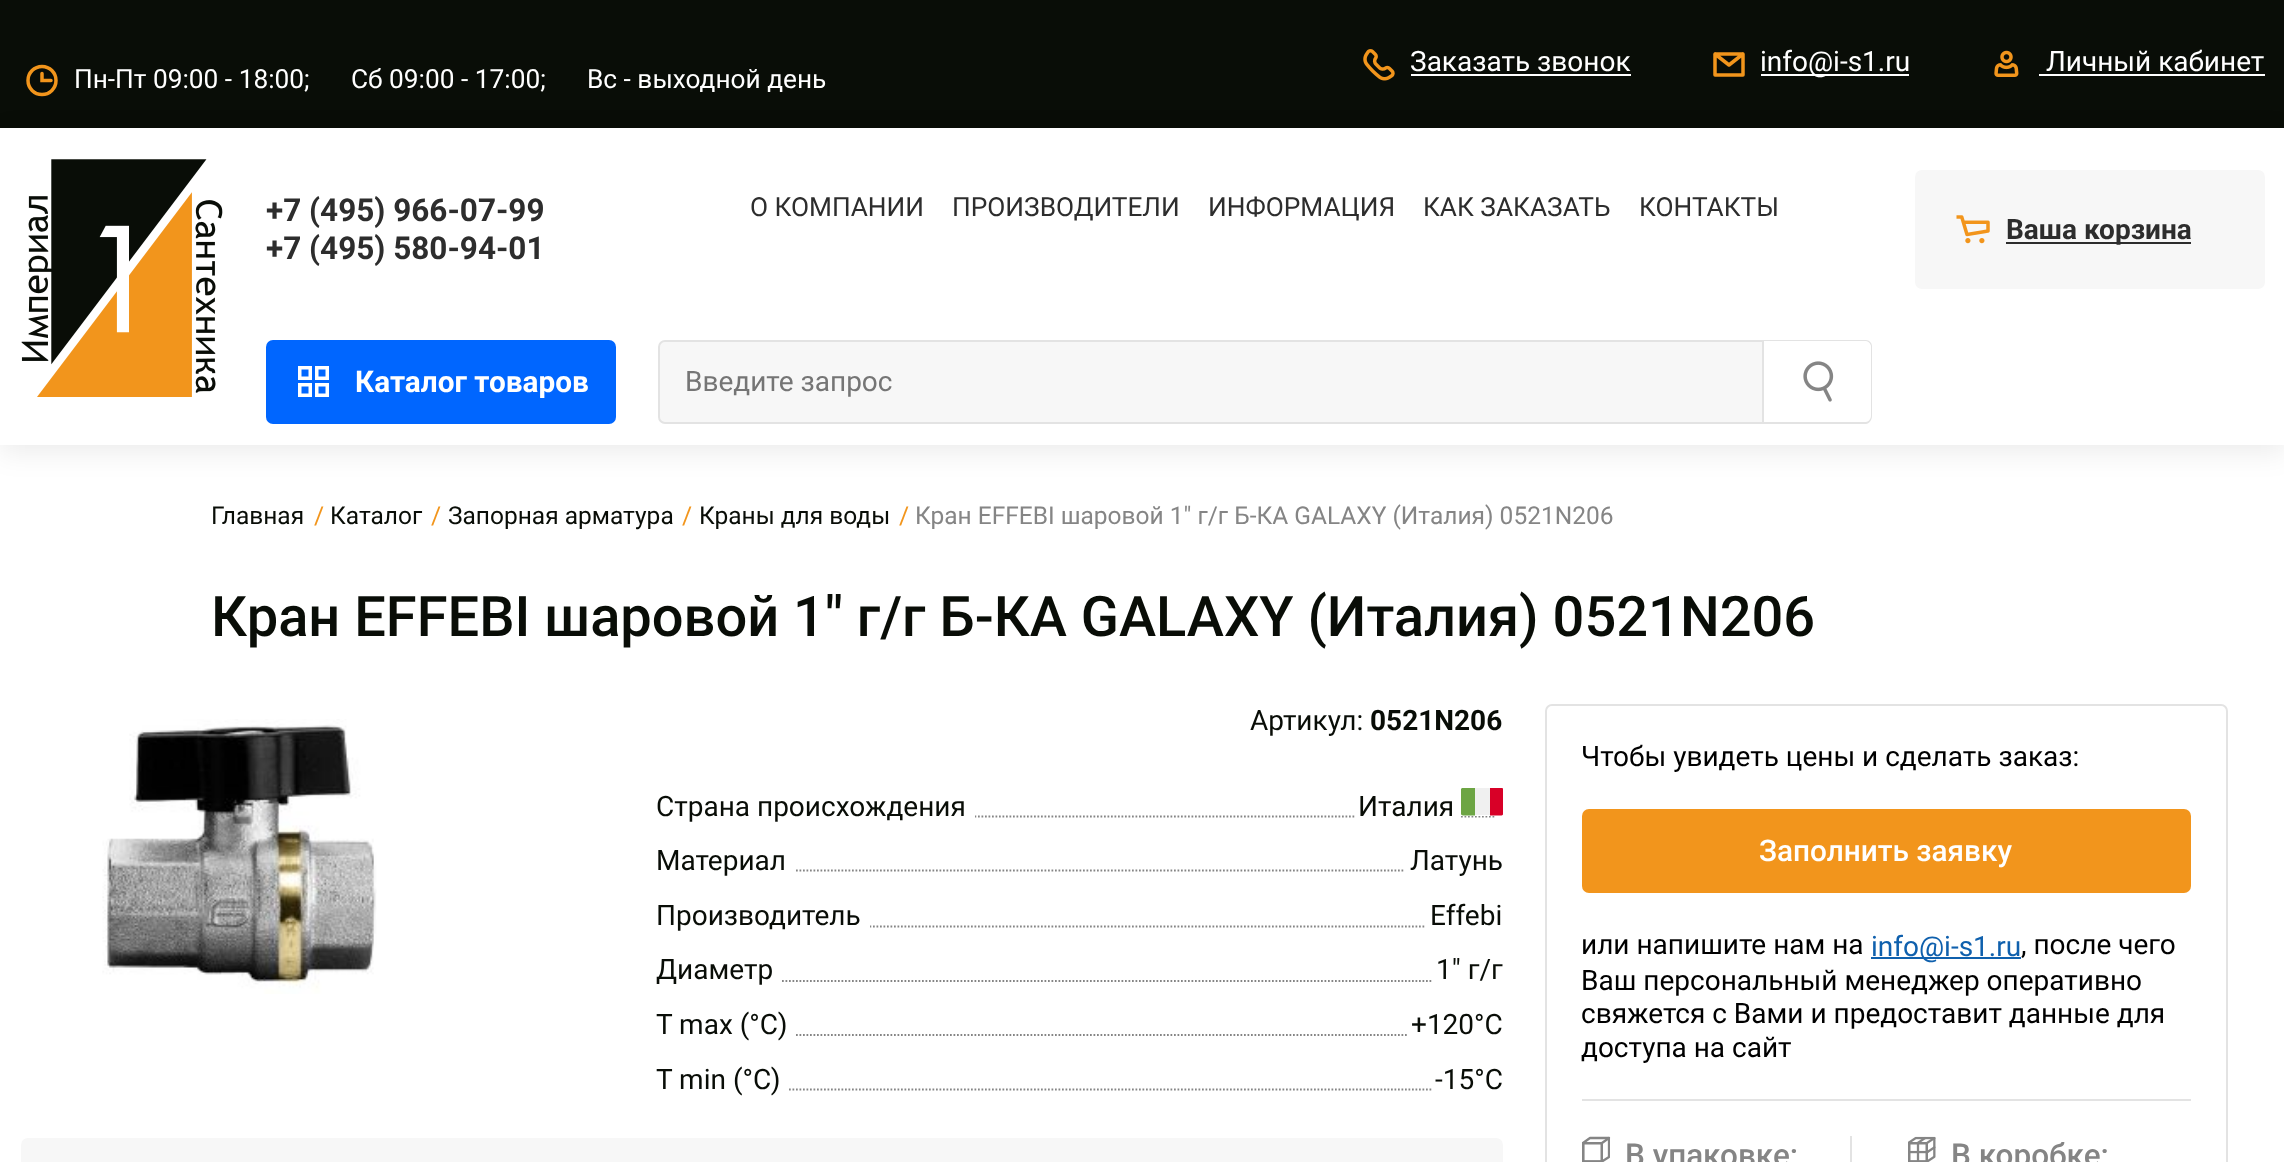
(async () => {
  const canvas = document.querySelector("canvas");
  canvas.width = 2284;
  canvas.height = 1162;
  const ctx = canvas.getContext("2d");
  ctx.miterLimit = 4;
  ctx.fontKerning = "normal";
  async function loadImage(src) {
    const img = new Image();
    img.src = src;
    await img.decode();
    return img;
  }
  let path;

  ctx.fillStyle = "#ffffff";
  ctx.fillRect(0, 0, 2284, 1162);
  ctx.fillStyle = "#090d07";
  ctx.fillRect(0, 0, 2284, 128);
  ctx.drawImage(await loadImage("img/1.png"), 1363, 49, 32, 32);
  ctx.fillStyle = "#ffffff";
  ctx.fillRect(1411, 74, 220, 2);
  path = new Path2D("M1715 54V75H1743V54M1715 54H1743M1715 54L1729 65L1743 54");
  ctx.strokeStyle = "#f2951c";
  ctx.lineWidth = 3.5;
  ctx.lineCap = "round";
  ctx.lineJoin = "round";
  ctx.stroke(path);
  ctx.fillRect(1761, 74, 148, 2);
  ctx.drawImage(await loadImage("img/2.png"), 1994, 50, 25, 27);
  ctx.fillRect(2039, 74, 226, 2);
  ctx.beginPath();
  ctx.arc(42, 80.5, 14, 0, Math.PI * 2);
  ctx.stroke();
  path = new Path2D("M42 73.5V80.5H51");
  ctx.lineJoin = "miter";
  ctx.stroke(path);
  ctx.save();
  path = new Path2D("M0 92H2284V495H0ZM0 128H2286V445H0Z");
  ctx.clip(path, "evenodd");
  ctx.fillStyle = "rgba(0, 0, 0, 0.08)";
  ctx.filter = "blur(14px)";
  ctx.beginPath();
  ctx.rect(0, 135, 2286, 317);
  ctx.fill();
  ctx.filter = "none";
  ctx.restore();
  ctx.drawImage(await loadImage("img/3.png"), 21, 159, 202, 238);
  ctx.fillStyle = "#0066ff";
  ctx.beginPath();
  ctx.roundRect(266, 340, 350, 84, 7);
  ctx.fill();
  ctx.strokeStyle = "#ffffff";
  ctx.strokeRect(299.75, 367.75, 10.5, 10.5);
  ctx.strokeRect(299.75, 384.75, 10.5, 10.5);
  ctx.strokeRect(316.75, 367.75, 10.5, 10.5);
  ctx.strokeRect(316.75, 384.75, 10.5, 10.5);
  ctx.fillStyle = "#f7f7f7";
  ctx.beginPath();
  ctx.roundRect(659, 341, 1104, 82, [6, 0, 0, 6]);
  ctx.fill();
  ctx.strokeStyle = "#e3e3e3";
  ctx.lineWidth = 2;
  ctx.stroke();
  ctx.drawImage(await loadImage("img/4.png"), 1803, 361, 31, 41);
  ctx.fillStyle = "#e3e3e3";
  path = new Path2D("M1764 340H1866C1869 340 1872 343 1872 346V416C1872 420 1869 424 1866 424H1764ZM1764 341H1866C1868 341 1871 344 1871 346V416C1871 419 1868 422 1866 422H1764Z");
  ctx.fill(path, "evenodd");
  ctx.fillStyle = "#f7f7f7";
  ctx.beginPath();
  ctx.roundRect(1915, 170, 350, 119, 7);
  ctx.fill();
  ctx.drawImage(await loadImage("img/5.png"), 1956, 215, 34, 29);
  ctx.fillStyle = "#2d2d2d";
  ctx.fillRect(2006, 242, 185, 2);
  ctx.drawImage(await loadImage("img/6.png"), 102, 719, 275, 275);
  path = new Path2D("M656 816.5H1494.5");
  ctx.strokeStyle = "#858585";
  ctx.lineWidth = 1.8;
  ctx.lineCap = "butt";
  ctx.setLineDash([1.75, 1.75]);
  ctx.stroke(path);
  for (const [x, y, w, h, color] of [
    [656, 815, 319, 3, "#ffffff"],
    [1356, 815, 104, 3, "#ffffff"],
    [1461, 815, 34, 1, "#ffffff"],
  ]) {
    ctx.fillStyle = color;
    ctx.fillRect(x, y, w, h);
  }
  ctx.save();
  ctx.beginPath();
  ctx.rect(1461, 788, 42, 28);
  ctx.clip();
  ctx.fillStyle = "#f0f0f0";
  path = new Path2D("M1461 789C1461 793 1460 814 1462 815H1503V788H1462Z");
  ctx.fill(path);
  ctx.restore();
  ctx.fillStyle = "#6da544";
  path = new Path2D("M1461 789V814C1461 814.5 1462 815.5 1463 815.5H1475V788H1462Z");
  ctx.fill(path);
  ctx.fillStyle = "#d80027";
  path = new Path2D("M1490 788H1502.5L1503 789V814C1503 814.5 1502.5 815.5 1501.5 815.5H1490Z");
  ctx.fill(path);
  path = new Path2D("M656 870.5H1494.5");
  ctx.stroke(path);
  ctx.fillStyle = "#ffffff";
  ctx.fillRect(656, 869, 139, 3);
  ctx.fillRect(1405, 869, 90, 3);
  path = new Path2D("M656 926.5H1494.5");
  ctx.stroke(path);
  ctx.fillRect(656, 925, 214, 3);
  ctx.fillRect(1426, 925, 69, 3);
  path = new Path2D("M656 981H1494.5");
  ctx.stroke(path);
  ctx.fillRect(656, 980, 125, 2);
  ctx.fillRect(1433, 980, 62, 2);
  path = new Path2D("M656 1035H1494.5");
  ctx.stroke(path);
  ctx.fillRect(656, 1034, 139, 2);
  ctx.fillRect(1408, 1034, 87, 2);
  path = new Path2D("M656 1089.5H1494.5");
  ctx.stroke(path);
  ctx.fillRect(656, 1088, 132, 3);
  ctx.fillRect(1433, 1088, 62, 3);
  ctx.fillStyle = "#f7f7f7";
  ctx.beginPath();
  ctx.roundRect(21, 1138, 1482, 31, 7);
  ctx.fill();
  ctx.beginPath();
  ctx.roundRect(1546, 705, 681, 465, 6);
  ctx.strokeStyle = "#e3e3e3";
  ctx.lineWidth = 2;
  ctx.setLineDash([]);
  ctx.stroke();
  ctx.fillStyle = "#f2951c";
  ctx.beginPath();
  ctx.roundRect(1582, 809, 609, 84, 7);
  ctx.fill();
  ctx.fillStyle = "#0f60ad";
  ctx.fillRect(1871, 957, 150, 2);
  ctx.fillStyle = "#e3e3e3";
  ctx.fillRect(1582, 1099, 609, 2);
  ctx.save();
  ctx.beginPath();
  ctx.rect(1582, 1136, 28, 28);
  ctx.clip();
  path = new Path2D("M1590 1138H1609V1157L1602 1161.5H1583V1143Z");
  ctx.strokeStyle = "#858585";
  ctx.lineWidth = 2.3;
  ctx.lineCap = "round";
  ctx.lineJoin = "round";
  ctx.stroke(path);
  ctx.restore();
  path = new Path2D("M1602 1143L1609 1138");
  ctx.strokeStyle = "#858585";
  ctx.lineWidth = 2.3;
  ctx.lineCap = "round";
  ctx.lineJoin = "round";
  ctx.stroke(path);
  ctx.lineWidth = 2.5;
  ctx.lineJoin = "miter";
  ctx.strokeRect(1583.25, 1143.25, 18.5, 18.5);
  ctx.fillRect(1850, 1136, 2, 26);
  ctx.drawImage(await loadImage("img/7.png"), 1908, 1136, 28, 26);
  ctx.font = "28px Roboto";
  ctx.fillStyle = "#ffffff";
  for (const [text, x, y] of [
    ["Заказать звонок", 1410, 71],
    ["info@i-s1.ru", 1760, 71],
    ["Личный кабинет", 2046, 71],
  ]) {
    ctx.fillText(text, x, y);
  }
  ctx.font = "26.25px Roboto";
  for (const [text, x, y] of [
    ["Пн-Пт 09:00 - 18:00;", 74, 88],
    ["Сб 09:00 - 17:00;", 351, 88],
    ["Вс - выходной день", 587, 88],
  ]) {
    ctx.fillText(text, x, y);
  }
  ctx.font = "bold 31.5px Roboto";
  ctx.fillStyle = "#2d2d2d";
  ctx.fillText("+7 (495) 966-07-99", 266, 221);
  ctx.fillText("+7 (495) 580-94-01", 266, 259);
  ctx.font = "26.25px Roboto";
  for (const [text, x, y] of [
    ["О КОМПАНИИ", 750, 216],
    ["ПРОИЗВОДИТЕЛИ", 952, 216],
    ["ИНФОРМАЦИЯ", 1208, 216],
    ["КАК ЗАКАЗАТЬ", 1423, 216],
    ["КОНТАКТЫ", 1639, 216],
  ]) {
    ctx.fillText(text, x, y);
  }
  ctx.font = "bold 29.75px Roboto";
  ctx.fillStyle = "#ffffff";
  ctx.fillText("Каталог товаров", 355, 392);
  ctx.font = "28px Roboto";
  ctx.fillStyle = "#757575";
  ctx.fillText("Введите запрос", 685, 391);
  ctx.font = "bold 28px Roboto";
  ctx.fillStyle = "#2d2d2d";
  ctx.fillText("Ваша корзина", 2006, 239);
  ctx.font = "24.5px Roboto";
  ctx.fillStyle = "#090d07";
  ctx.fillText("Главная", 211, 524);
  ctx.fillStyle = "#f2951c";
  ctx.fillText("/", 314, 524);
  ctx.fillStyle = "#090d07";
  ctx.fillText("Каталог", 330, 524);
  ctx.fillStyle = "#f2951c";
  ctx.fillText("/", 431, 524);
  ctx.fillStyle = "#090d07";
  ctx.fillText("Запорная арматура", 448, 524);
  ctx.fillStyle = "#f2951c";
  ctx.fillText("/", 682, 524);
  ctx.fillStyle = "#090d07";
  ctx.fillText("Краны для воды", 699, 524);
  ctx.fillStyle = "#f2951c";
  ctx.fillText("/", 899, 524);
  ctx.fillStyle = "#858585";
  ctx.fillText("Кран EFFEBI шаровой 1\" г/г Б-КА GALAXY (Италия) 0521N206", 915, 524);
  ctx.font = "500 56px Roboto";
  ctx.fillStyle = "#090d07";
  ctx.fillText("Кран EFFEBI шаровой 1\" г/г Б-КА GALAXY (Италия) 0521N206", 211, 636);
  ctx.font = "28px Roboto";
  ctx.fillText("Артикул:", 1250, 730);
  ctx.font = "bold 28px Roboto";
  ctx.fillText("0521N206", 1370, 730);
  ctx.font = "28px Roboto";
  for (const [text, x, y] of [
    ["Страна происхождения", 656, 816],
    ["Италия", 1358, 816],
    ["Материал", 656, 870],
    ["Латунь", 1410, 870],
    ["Производитель", 656, 925],
    ["Effebi", 1430, 925],
    ["Диаметр", 656, 979],
    ["1\" г/г", 1436, 979],
    ["T max (°C)", 656, 1034],
    ["+120°C", 1411, 1034],
    ["T min (°C)", 656, 1089],
    ["-15°C", 1435, 1089],
  ]) {
    ctx.fillText(text, x, y);
  }
  ctx.fillStyle = "#000000";
  ctx.fillText("Чтобы увидеть цены и сделать заказ:", 1581, 766);
  ctx.font = "500 29.75px Roboto";
  ctx.fillStyle = "#ffffff";
  ctx.fillText("Заполнить заявку", 1759, 861);
  ctx.font = "28px Roboto";
  ctx.fillStyle = "#000000";
  ctx.fillText("или напишите нам на", 1581, 954);
  ctx.fillStyle = "#0f60ad";
  ctx.fillText("info@i-s1.ru", 1871, 956);
  ctx.fillStyle = "#000000";
  for (const [text, x, y] of [
    [", после чего", 2021, 954],
    ["Ваш персональный менеджер оперативно", 1581, 990],
    ["свяжется с Вами и предоставит данные для", 1581, 1023],
    ["доступа на сайт", 1581, 1057],
  ]) {
    ctx.fillText(text, x, y);
  }
  ctx.font = "500 31.5px Roboto";
  ctx.fillStyle = "#858585";
  ctx.fillText("В упаковке:", 1625, 1166);
  ctx.fillText("В коробке:", 1951, 1166);
})();
